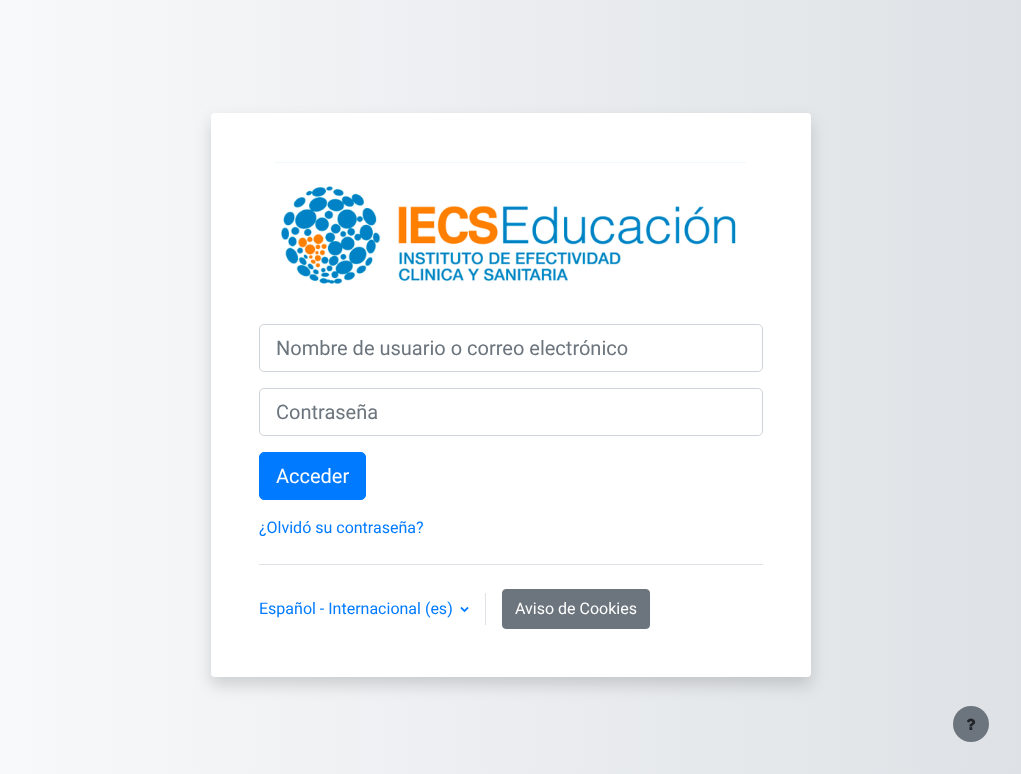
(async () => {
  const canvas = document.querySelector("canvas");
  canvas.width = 1021;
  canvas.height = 774;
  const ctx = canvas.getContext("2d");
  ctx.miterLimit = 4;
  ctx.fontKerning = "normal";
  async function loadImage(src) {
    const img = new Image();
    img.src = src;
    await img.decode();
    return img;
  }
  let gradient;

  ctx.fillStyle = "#ffffff";
  ctx.fillRect(0, 0, 1021, 774);
  gradient = ctx.createLinearGradient(0, 387, 1021, 387);
  gradient.addColorStop(0, "#f8f9fa");
  gradient.addColorStop(1, "#dee2e6");
  ctx.fillStyle = gradient;
  ctx.fillRect(0, 0, 1021, 774);
  ctx.fillStyle = "rgba(0, 0, 0, 0.15)";
  ctx.filter = "blur(8px)";
  ctx.beginPath();
  ctx.roundRect(211, 121, 600, 564, 4);
  ctx.fill();
  ctx.filter = "none";
  ctx.fillStyle = "#ffffff";
  ctx.beginPath();
  ctx.roundRect(211, 113, 600, 564, 4);
  ctx.fill();
  ctx.drawImage(await loadImage("img/1.png"), 274, 162, 472, 122);
  ctx.beginPath();
  ctx.roundRect(259.5, 324.5, 503, 47, 4.5);
  ctx.strokeStyle = "#ced4da";
  ctx.stroke();
  ctx.beginPath();
  ctx.roundRect(259.5, 388.5, 503, 47, 4.5);
  ctx.stroke();
  ctx.fillStyle = "#007bff";
  ctx.beginPath();
  ctx.roundRect(259.5, 452.5, 106, 47, 4.5);
  ctx.fill();
  ctx.strokeStyle = "#007bff";
  ctx.stroke();
  ctx.fillStyle = "#dee2e6";
  ctx.fillRect(259, 564, 504, 1);
  ctx.drawImage(await loadImage("img/2.png"), 460, 607, 9, 6);
  ctx.fillRect(485, 593, 1, 32);
  ctx.fillStyle = "#6c757d";
  ctx.beginPath();
  ctx.roundRect(502.5, 589.5, 147, 39, 3.5);
  ctx.fill();
  ctx.strokeStyle = "#6c757d";
  ctx.stroke();
  ctx.beginPath();
  ctx.arc(971, 724, 18, 0, Math.PI * 2);
  ctx.fill();
  ctx.drawImage(await loadImage("img/3.png"), 967, 718, 9, 12);
  ctx.font = "20px Roboto";
  ctx.fillText("Nombre de usuario o correo electrónico", 276, 355);
  ctx.fillText("Contraseña", 276, 419);
  ctx.fillStyle = "#ffffff";
  ctx.fillText("Acceder", 276, 483);
  ctx.font = "16px Roboto";
  ctx.fillStyle = "#007bff";
  ctx.fillText("¿Olvidó su contraseña?", 259, 533);
  ctx.fillText("Español - Internacional (es)", 259, 614);
  ctx.fillStyle = "#ffffff";
  ctx.fillText("Aviso de Cookies", 515, 614);
})();
